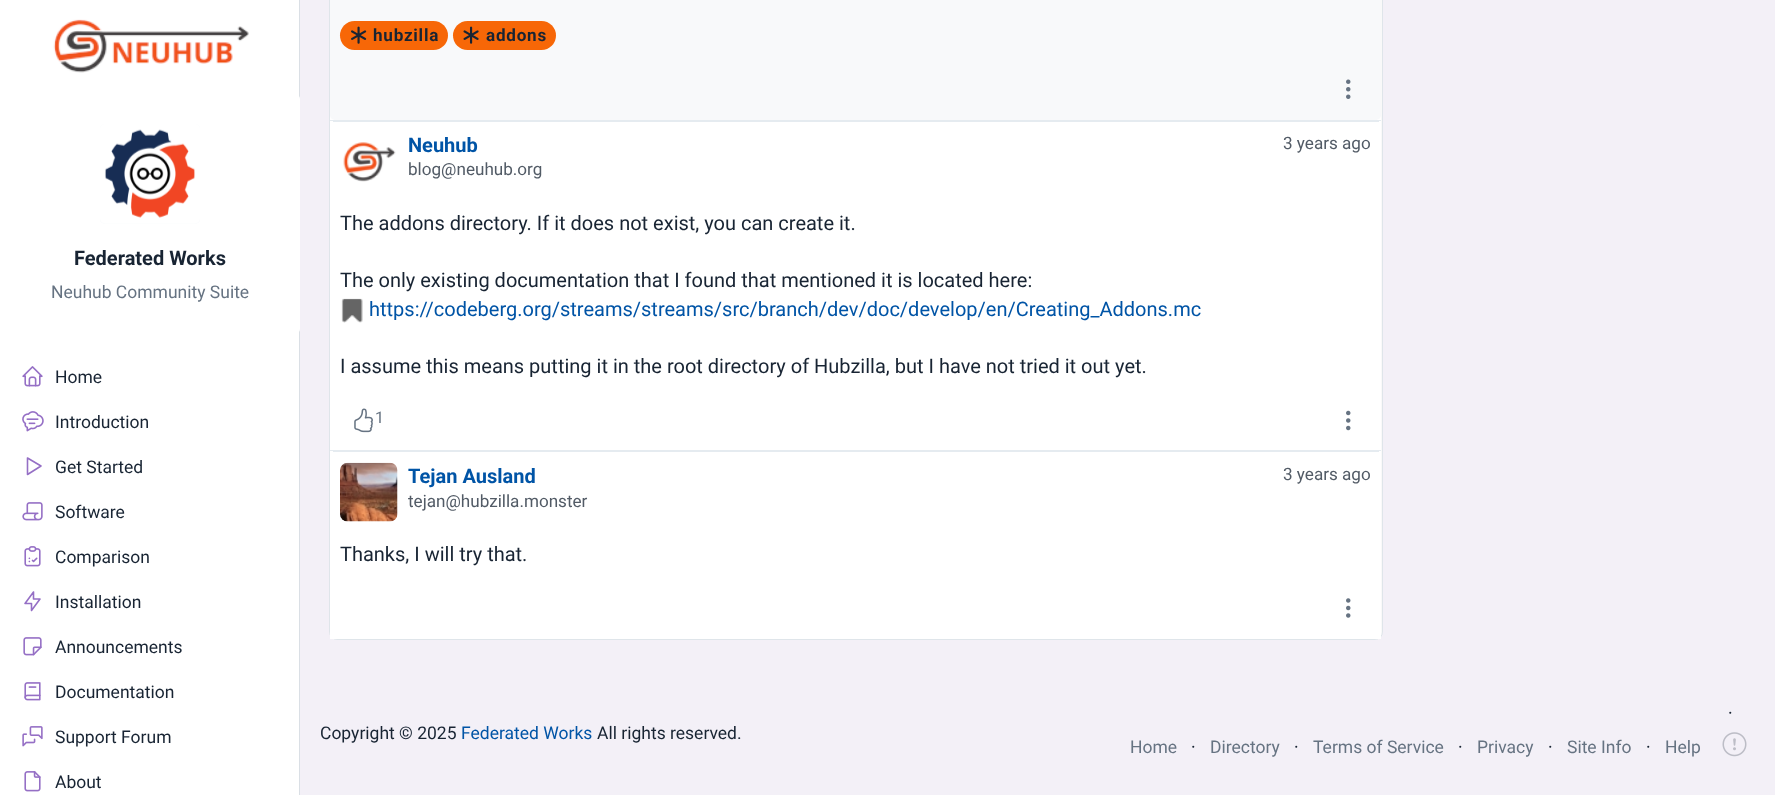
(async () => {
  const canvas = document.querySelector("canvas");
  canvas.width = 1775;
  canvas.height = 795;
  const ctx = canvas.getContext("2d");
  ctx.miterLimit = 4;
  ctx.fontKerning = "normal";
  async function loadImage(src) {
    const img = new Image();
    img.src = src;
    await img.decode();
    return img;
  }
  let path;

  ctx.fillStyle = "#f3f0f7";
  ctx.fillRect(0, 0, 1775, 795);
  ctx.fillStyle = "#ffffff";
  ctx.fillRect(0, 0, 299, 795);
  ctx.fillStyle = "#dadfe5";
  ctx.fillRect(299, 0, 1, 795);
  ctx.drawImage(await loadImage("img/1.png"), 53, 19, 196, 54);
  ctx.fillStyle = "#ffffff";
  ctx.beginPath();
  ctx.roundRect(0, 94, 300, 240, 5);
  ctx.fill();
  ctx.fillStyle = "#f6f8fb";
  ctx.beginPath();
  ctx.roundRect(100, 124, 100, 100, 5);
  ctx.fill();
  ctx.drawImage(await loadImage("img/2.png"), 100, 124, 100, 100);
  ctx.drawImage(await loadImage("img/3.png"), 22, 366, 21, 21);
  ctx.drawImage(await loadImage("img/4.png"), 22, 411, 22, 21);
  path = new Path2D("M27.5 458V474.5L41 466Z");
  ctx.strokeStyle = "#956fc5";
  ctx.lineWidth = 1.6;
  ctx.lineCap = "round";
  ctx.lineJoin = "round";
  ctx.stroke(path);
  ctx.drawImage(await loadImage("img/5.png"), 22, 502, 21, 19);
  ctx.drawImage(await loadImage("img/6.png"), 24, 546, 17, 21);
  path = new Path2D("M33.5 592V599H40L31.5 610.5V603.5H25L33.5 592");
  ctx.stroke(path);
  ctx.drawImage(await loadImage("img/7.png"), 23, 637, 19, 19);
  ctx.drawImage(await loadImage("img/8.png"), 24, 682, 17, 19);
  ctx.drawImage(await loadImage("img/9.png"), 22, 726, 21, 21);
  ctx.drawImage(await loadImage("img/10.png"), 24, 771, 17, 21);
  ctx.fillStyle = "#f9f9f9";
  ctx.beginPath();
  ctx.roundRect(329, -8, 1054, 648, 8);
  ctx.fill();
  ctx.beginPath();
  ctx.roundRect(329.5, -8.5, 1053, 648, 7.5);
  ctx.strokeStyle = "rgba(72, 110, 149, 0.14)";
  ctx.lineWidth = 1;
  ctx.lineJoin = "miter";
  ctx.stroke();
  ctx.fillStyle = "#ffffff";
  ctx.fillRect(330, 115, 1051, 5);
  ctx.fillStyle = "#f8f9fa";
  ctx.beginPath();
  ctx.roundRect(330, -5, 1051, 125, 5);
  ctx.fill();
  ctx.fillStyle = "#f76707";
  ctx.beginPath();
  ctx.roundRect(340, 21, 108, 29, 14.5);
  ctx.fill();
  ctx.drawImage(await loadImage("img/11.png"), 351, 26, 16, 18);
  ctx.beginPath();
  ctx.roundRect(453, 21, 103, 29, 14.5);
  ctx.fill();
  ctx.drawImage(await loadImage("img/12.png"), 463, 26, 16, 18);
  ctx.drawImage(await loadImage("img/13.png"), 1346, 79, 5, 20);
  for (const [x, y, w, h, color] of [
    [330, 121, 1051, 329, "#ffffff"],
    [330, 120, 1051, 1, "#e5ebf0"],
    [333, 121, 1046, 1, "#e5ebf0"],
  ]) {
    ctx.fillStyle = color;
    ctx.fillRect(x, y, w, h);
  }
  ctx.drawImage(await loadImage("img/14.png"), 343, 142, 53, 40);
  ctx.drawImage(await loadImage("img/15.png"), 341, 298, 22, 25);
  ctx.drawImage(await loadImage("img/16.png"), 354, 408, 19, 25);
  ctx.drawImage(await loadImage("img/17.png"), 1346, 410, 5, 21);
  for (const [x, y, w, h, color] of [
    [330, 451, 1051, 188, "#ffffff"],
    [330, 450, 1051, 1, "#e5ebf0"],
    [333, 451, 1046, 1, "#e5ebf0"],
  ]) {
    ctx.fillStyle = color;
    ctx.fillRect(x, y, w, h);
  }
  ctx.drawImage(await loadImage("img/18.png"), 340, 462, 58, 60);
  ctx.drawImage(await loadImage("img/19.png"), 1346, 598, 5, 20);
  ctx.drawImage(await loadImage("img/20.png"), 1722, 732, 25, 25);
  ctx.font = "bold 20px Roboto";
  ctx.fillStyle = "#182433";
  ctx.fillText("Federated Works", 74, 265);
  ctx.font = "17.5px Roboto";
  ctx.fillStyle = "#667382";
  ctx.fillText("Neuhub Community Suite", 51, 298);
  ctx.fillStyle = "#182433";
  for (const [text, x, y] of [
    ["Home", 55, 383],
    ["Introduction", 55, 428],
    ["Get Started", 55, 473],
    ["Software", 55, 518],
    ["Comparison", 55, 563],
    ["Installation", 55, 608],
    ["Announcements", 55, 653],
    ["Documentation", 55, 698],
    ["Support Forum", 55, 743],
    ["About", 55, 788],
  ]) {
    ctx.fillText(text, x, y);
  }
  ctx.letterSpacing = "0.75px";
  ctx.font = "bold 17.1px Roboto";
  ctx.fillText("hubzilla", 373, 41);
  ctx.fillText("addons", 486, 41);
  ctx.letterSpacing = "0px";
  ctx.font = "bold 20px Roboto";
  ctx.fillStyle = "#0054a6";
  ctx.fillText("Neuhub", 408, 152);
  ctx.font = "17.1px Roboto";
  ctx.fillStyle = "#525b66";
  ctx.fillText("blog@neuhub.org", 408, 175);
  ctx.fillText("3 years ago", 1283, 149);
  ctx.font = "20px Roboto";
  ctx.fillStyle = "#182433";
  ctx.fillText("The addons directory. If it does not exist, you can create it.", 340, 230);
  ctx.fillText("The only existing documentation that I found that mentioned it is located here:", 340, 287);
  ctx.fillStyle = "#0054a6";
  ctx.fillText("https://codeberg.org/streams/streams/src/branch/dev/doc/develop/en/Creating_Addons.mc", 369, 316);
  ctx.fillStyle = "#182433";
  ctx.fillText("I assume this means putting it in the root directory of Hubzilla, but I have not tried it out yet.", 340, 373);
  ctx.font = "16px Roboto";
  ctx.fillStyle = "#667382";
  ctx.fillText("1", 375, 423);
  ctx.font = "bold 20px Roboto";
  ctx.fillStyle = "#0054a6";
  ctx.fillText("Tejan Ausland", 408, 483);
  ctx.font = "17.1px Roboto";
  ctx.fillStyle = "#525b66";
  ctx.fillText("tejan@hubzilla.monster", 408, 507);
  ctx.fillText("3 years ago", 1283, 480);
  ctx.font = "20px Roboto";
  ctx.fillStyle = "#182433";
  ctx.fillText("Thanks, I will try that.", 340, 561);
  ctx.font = "17.5px Roboto";
  ctx.fillText("Copyright © 2025", 320, 739);
  ctx.fillStyle = "#0054a6";
  ctx.fillText("Federated Works", 461, 739);
  ctx.fillStyle = "#182433";
  ctx.fillText("All rights reserved.", 597, 739);
  ctx.fillText("·", 1728, 719);
  ctx.fillStyle = "#667382";
  ctx.fillText("Home", 1130, 753);
  ctx.fillStyle = "#182433";
  ctx.fillText("·", 1191, 753);
  ctx.fillStyle = "#667382";
  ctx.fillText("Directory", 1210, 753);
  ctx.fillStyle = "#182433";
  ctx.fillText("·", 1294, 753);
  ctx.fillStyle = "#667382";
  ctx.fillText("Terms of Service", 1313, 753);
  ctx.fillStyle = "#182433";
  ctx.fillText("·", 1458, 753);
  ctx.fillStyle = "#667382";
  ctx.fillText("Privacy", 1477, 753);
  ctx.fillStyle = "#182433";
  ctx.fillText("·", 1548, 753);
  ctx.fillStyle = "#667382";
  ctx.fillText("Site Info", 1567, 753);
  ctx.fillStyle = "#182433";
  ctx.fillText("·", 1646, 753);
  ctx.fillStyle = "#667382";
  ctx.fillText("Help", 1665, 753);
})();
